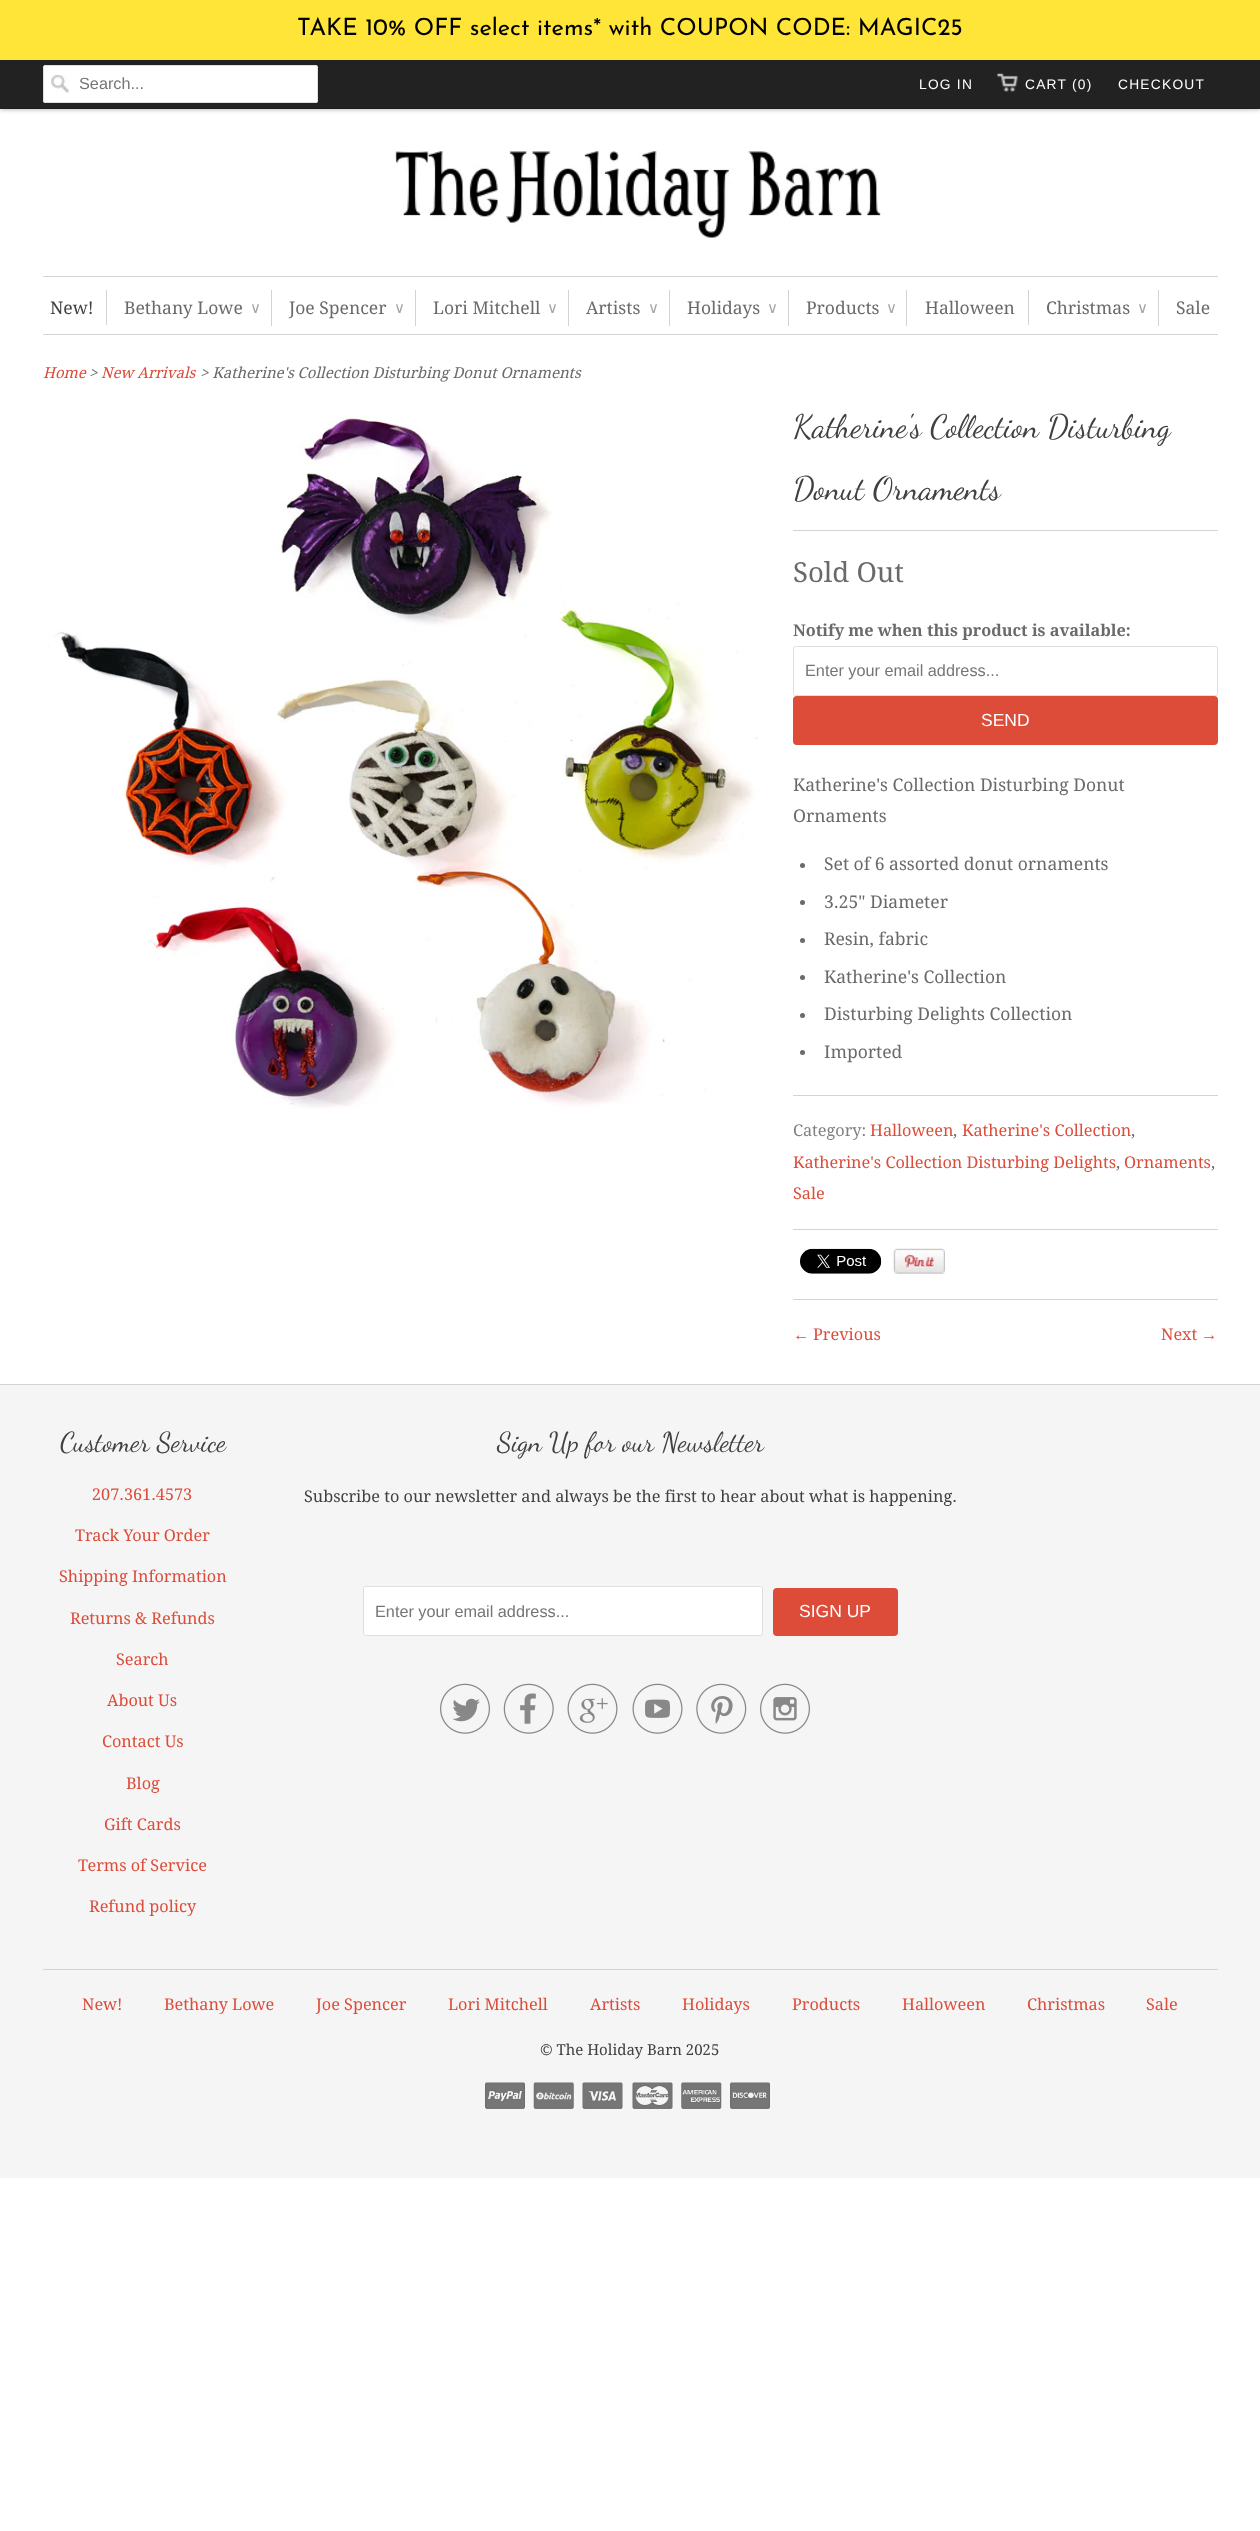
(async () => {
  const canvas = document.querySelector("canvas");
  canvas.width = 1260;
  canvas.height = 2531;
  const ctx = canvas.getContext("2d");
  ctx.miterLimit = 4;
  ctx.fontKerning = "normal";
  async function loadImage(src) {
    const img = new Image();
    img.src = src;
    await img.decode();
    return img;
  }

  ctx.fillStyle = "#ffffff";
  ctx.fillRect(0, 0, 1260, 2531);
  ctx.fillStyle = "rgba(0, 0, 0, 0.25)";
  ctx.filter = "blur(2px)";
  ctx.beginPath();
  ctx.rect(0, 60, 1260, 50);
  ctx.fill();
  ctx.filter = "none";
  for (const [x, y, w, h, color] of [
    [0, 0, 1260, 60, "#ffe538"],
    [0, 60, 1260, 48, "#222222"],
    [0, 108, 1260, 1, "#1f1f1f"],
  ]) {
    ctx.fillStyle = color;
    ctx.fillRect(x, y, w, h);
  }
  ctx.fillStyle = "#ffffff";
  ctx.beginPath();
  ctx.roundRect(43, 65, 275, 38, 2.5);
  ctx.fill();
  ctx.drawImage(await loadImage("img/1.png"), 51, 75, 18, 18);
  ctx.beginPath();
  ctx.roundRect(43.5, 65.5, 274, 37, 2);
  ctx.strokeStyle = "#dfdfdf";
  ctx.stroke();
  ctx.drawImage(await loadImage("img/2.png"), 997, 73, 21, 19);
  ctx.drawImage(await loadImage("img/3.png"), 394, 151, 487, 88);
  for (const [x, y, w, h, color] of [
    [43, 276, 1175, 1, "#d3d3d3"],
    [43, 334, 1175, 1, "#d3d3d3"],
    [106, 290, 1, 35, "#d3d3d3"],
    [271, 290, 1, 36, "#d3d3d3"],
    [415, 290, 1, 36, "#d3d3d3"],
    [568, 290, 1, 36, "#d3d3d3"],
    [669, 290, 1, 36, "#d3d3d3"],
    [788, 290, 1, 36, "#d3d3d3"],
    [906, 290, 1, 36, "#d3d3d3"],
    [1028, 290, 1, 35, "#d3d3d3"],
    [1158, 290, 1, 36, "#d3d3d3"],
  ]) {
    ctx.fillStyle = color;
    ctx.fillRect(x, y, w, h);
  }
  ctx.drawImage(await loadImage("img/4.png"), 48, 414, 710, 695);
  ctx.fillRect(793, 530, 425, 1);
  ctx.beginPath();
  ctx.roundRect(793.5, 646.5, 424, 49, 2);
  ctx.stroke();
  ctx.fillStyle = "#dd4b39";
  ctx.beginPath();
  ctx.roundRect(793, 696, 425, 49, 4);
  ctx.fill();
  ctx.fillStyle = "#6b6969";
  ctx.beginPath();
  ctx.arc(802.5, 865.5, 2.5, 0, Math.PI * 2);
  ctx.fill();
  ctx.beginPath();
  ctx.arc(802.5, 902.5, 2.5, 0, Math.PI * 2);
  ctx.fill();
  ctx.beginPath();
  ctx.arc(802.5, 940.5, 2.5, 0, Math.PI * 2);
  ctx.fill();
  ctx.beginPath();
  ctx.arc(802.5, 977.5, 2.5, 0, Math.PI * 2);
  ctx.fill();
  ctx.beginPath();
  ctx.arc(802.5, 1015.5, 2.5, 0, Math.PI * 2);
  ctx.fill();
  ctx.beginPath();
  ctx.arc(802.5, 1052.5, 2.5, 0, Math.PI * 2);
  ctx.fill();
  ctx.fillStyle = "#d3d3d3";
  ctx.fillRect(793, 1095, 425, 1);
  ctx.fillRect(793, 1229, 425, 1);
  ctx.drawImage(await loadImage("img/5.png"), 800, 1248, 82, 26);
  ctx.drawImage(await loadImage("img/6.png"), 893, 1248, 52, 26);
  for (const [x, y, w, h, color] of [
    [793, 1299, 425, 1, "#d3d3d3"],
    [0, 1385, 1260, 793, "#f5f5f5"],
    [0, 1384, 1260, 1, "#d3d3d3"],
  ]) {
    ctx.fillStyle = color;
    ctx.fillRect(x, y, w, h);
  }
  ctx.fillStyle = "#ffffff";
  ctx.beginPath();
  ctx.roundRect(363.5, 1586.5, 399, 49, 2);
  ctx.fill();
  ctx.stroke();
  ctx.fillStyle = "#dd4b39";
  ctx.beginPath();
  ctx.roundRect(773, 1588, 125, 48, 4);
  ctx.fill();
  ctx.drawImage(await loadImage("img/7.png"), 440, 1683, 50, 51);
  ctx.drawImage(await loadImage("img/8.png"), 503, 1683, 51, 51);
  ctx.drawImage(await loadImage("img/9.png"), 567, 1683, 51, 51);
  ctx.drawImage(await loadImage("img/10.png"), 632, 1683, 51, 51);
  ctx.drawImage(await loadImage("img/11.png"), 696, 1683, 51, 51);
  ctx.drawImage(await loadImage("img/12.png"), 760, 1683, 50, 51);
  ctx.fillStyle = "#d3d3d3";
  ctx.fillRect(43, 1969, 1175, 1);
  ctx.drawImage(await loadImage("img/13.png"), 485, 2082, 40, 27);
  ctx.drawImage(await loadImage("img/14.png"), 533, 2082, 41, 27);
  ctx.drawImage(await loadImage("img/15.png"), 582, 2082, 41, 27);
  ctx.drawImage(await loadImage("img/16.png"), 632, 2082, 41, 27);
  ctx.drawImage(await loadImage("img/17.png"), 681, 2082, 41, 27);
  ctx.drawImage(await loadImage("img/18.png"), 730, 2082, 40, 27);
  ctx.font = "100 23.75px Josefin Sans";
  ctx.fillStyle = "#000000";
  ctx.fillText("TAKE 10% OFF select items* with COUPON CODE: MAGIC25", 297, 35);
  ctx.font = "16.25px Liberation Sans";
  ctx.fillStyle = "#757575";
  ctx.fillText("Search...", 79, 89);
  ctx.letterSpacing = "1.25px";
  ctx.font = "13.75px Liberation Sans";
  ctx.fillStyle = "#ffffff";
  for (const [text, x, y] of [
    ["LOG IN", 919, 89],
    ["CART (0)", 1025, 89],
    ["CHECKOUT", 1118, 89],
  ]) {
    ctx.fillText(text, x, y);
  }
  ctx.letterSpacing = "0px";
  ctx.font = "17.5px Droid Serif";
  ctx.fillStyle = "#404040";
  ctx.fillText("New!", 50, 314);
  ctx.fillStyle = "#6b6969";
  ctx.fillText("Bethany Lowe", 124, 314);
  ctx.font = "15px DejaVu Sans";
  ctx.fillStyle = "#a6a5a5";
  ctx.fillText("∨", 250, 313);
  ctx.font = "17.5px Droid Serif";
  ctx.fillStyle = "#6b6969";
  ctx.fillText("Joe Spencer", 289, 314);
  ctx.font = "15px DejaVu Sans";
  ctx.fillStyle = "#a6a5a5";
  ctx.fillText("∨", 394, 313);
  ctx.font = "17.5px Droid Serif";
  ctx.fillStyle = "#6b6969";
  ctx.fillText("Lori Mitchell", 433, 314);
  ctx.font = "15px DejaVu Sans";
  ctx.fillStyle = "#a6a5a5";
  ctx.fillText("∨", 547, 313);
  ctx.font = "17.5px Droid Serif";
  ctx.fillStyle = "#6b6969";
  ctx.fillText("Artists", 586, 314);
  ctx.font = "15px DejaVu Sans";
  ctx.fillStyle = "#a6a5a5";
  ctx.fillText("∨", 648, 313);
  ctx.font = "17.5px Droid Serif";
  ctx.fillStyle = "#6b6969";
  ctx.fillText("Holidays", 687, 314);
  ctx.font = "15px DejaVu Sans";
  ctx.fillStyle = "#a6a5a5";
  ctx.fillText("∨", 767, 313);
  ctx.font = "17.5px Droid Serif";
  ctx.fillStyle = "#6b6969";
  ctx.fillText("Products", 806, 314);
  ctx.font = "15px DejaVu Sans";
  ctx.fillStyle = "#a6a5a5";
  ctx.fillText("∨", 886, 313);
  ctx.font = "17.5px Droid Serif";
  ctx.fillStyle = "#6b6969";
  ctx.fillText("Halloween", 925, 314);
  ctx.fillText("Christmas", 1046, 314);
  ctx.font = "15px DejaVu Sans";
  ctx.fillStyle = "#a6a5a5";
  ctx.fillText("∨", 1137, 313);
  ctx.font = "17.5px Droid Serif";
  ctx.fillStyle = "#6b6969";
  ctx.fillText("Sale", 1176, 314);
  ctx.font = "italic 15px Droid Serif";
  ctx.fillStyle = "#dd4b39";
  ctx.fillText("Home", 43, 378);
  ctx.fillStyle = "#6b6969";
  ctx.fillText(">", 89, 378);
  ctx.fillStyle = "#dd4b39";
  ctx.fillText("New Arrivals", 101, 378);
  ctx.fillStyle = "#6b6969";
  ctx.fillText("> Katherine's Collection Disturbing Donut Ornaments", 200, 378);
  ctx.font = "32.5px Dancing Script";
  ctx.fillStyle = "#404040";
  ctx.fillText("Katherine's Collection Disturbing", 793, 437);
  ctx.fillText("Donut Ornaments", 793, 499);
  ctx.font = "27.5px Droid Serif";
  ctx.fillStyle = "#6b6969";
  ctx.fillText("Sold Out", 793, 582);
  ctx.font = "bold 16.25px Droid Serif";
  ctx.fillText("Notify me when this product is available:", 793, 636);
  ctx.font = "16.25px Liberation Sans";
  ctx.fillStyle = "#757575";
  ctx.fillText("Enter your email address...", 805, 676);
  ctx.font = "17.5px Liberation Sans";
  ctx.fillStyle = "#ffffff";
  ctx.fillText("SEND", 981, 726);
  ctx.font = "17.5px Droid Serif";
  ctx.fillStyle = "#6b6969";
  for (const [text, x, y] of [
    ["Katherine's Collection Disturbing Donut", 793, 791],
    ["Ornaments", 793, 822],
    ["Set of 6 assorted donut ornaments", 824, 870],
    ["3.25\" Diameter", 824, 908],
    ["Resin, fabric", 824, 945],
    ["Katherine's Collection", 824, 983],
    ["Disturbing Delights Collection", 824, 1020],
    ["Imported", 824, 1058],
  ]) {
    ctx.fillText(text, x, y);
  }
  ctx.font = "16.25px Droid Serif";
  ctx.fillStyle = "#808080";
  ctx.fillText("Category:", 793, 1136);
  ctx.fillStyle = "#dd4b39";
  ctx.fillText("Halloween", 870, 1136);
  ctx.fillStyle = "#6b6969";
  ctx.fillText(",", 953, 1136);
  ctx.fillStyle = "#dd4b39";
  ctx.fillText("Katherine's Collection", 962, 1136);
  ctx.fillStyle = "#6b6969";
  ctx.fillText(",", 1131, 1136);
  ctx.fillStyle = "#dd4b39";
  ctx.fillText("Katherine's Collection Disturbing Delights", 793, 1168);
  ctx.fillStyle = "#6b6969";
  ctx.fillText(",", 1116, 1168);
  ctx.fillStyle = "#dd4b39";
  ctx.fillText("Ornaments", 1124, 1168);
  ctx.fillStyle = "#6b6969";
  ctx.fillText(",", 1211, 1168);
  ctx.fillStyle = "#dd4b39";
  ctx.fillText("Sale", 793, 1199);
  ctx.font = "16.25px Liberation Serif";
  ctx.fillText("←", 793, 1340);
  ctx.font = "16.25px Droid Serif";
  ctx.fillText("Previous", 813, 1340);
  ctx.fillText("Next", 1161, 1340);
  ctx.font = "16.25px Liberation Serif";
  ctx.fillText("→", 1201, 1340);
  ctx.font = "27.5px Dancing Script";
  ctx.fillStyle = "#404040";
  ctx.fillText("Customer Service", 60, 1451);
  ctx.font = "16.25px Droid Serif";
  ctx.fillStyle = "#dd4b39";
  for (const [text, x, y] of [
    ["207.361.4573", 92, 1500],
    ["Track Your Order", 75, 1541],
    ["Shipping Information", 59, 1582],
    ["Returns & Refunds", 70, 1624],
    ["Search", 116, 1665],
    ["About Us", 107, 1706],
    ["Contact Us", 102, 1747],
    ["Blog", 126, 1789],
    ["Gift Cards", 104, 1830],
    ["Terms of Service", 78, 1871],
    ["Refund policy", 89, 1912],
  ]) {
    ctx.fillText(text, x, y);
  }
  ctx.font = "27.5px Dancing Script";
  ctx.fillStyle = "#404040";
  ctx.fillText("Sign Up for our Newsletter", 497, 1451);
  ctx.font = "16.25px Droid Serif";
  ctx.fillText("Subscribe to our newsletter and always be the first to hear about what is happening.", 304, 1502);
  ctx.font = "16.25px Liberation Sans";
  ctx.fillStyle = "#757575";
  ctx.fillText("Enter your email address...", 375, 1617);
  ctx.font = "17.5px Liberation Sans";
  ctx.fillStyle = "#ffffff";
  ctx.fillText("SIGN UP", 799, 1617);
  ctx.font = "16.25px Droid Serif";
  ctx.fillStyle = "#dd4b39";
  for (const [text, x, y] of [
    ["New!", 82, 2010],
    ["Bethany Lowe", 164, 2010],
    ["Joe Spencer", 316, 2010],
    ["Lori Mitchell", 448, 2010],
    ["Artists", 590, 2010],
    ["Holidays", 682, 2010],
    ["Products", 792, 2010],
    ["Halloween", 902, 2010],
    ["Christmas", 1027, 2010],
    ["Sale", 1146, 2010],
  ]) {
    ctx.fillText(text, x, y);
  }
  ctx.font = "15px Droid Serif";
  ctx.fillStyle = "#404040";
  ctx.fillText("© The Holiday Barn 2025", 540, 2055);
})();
